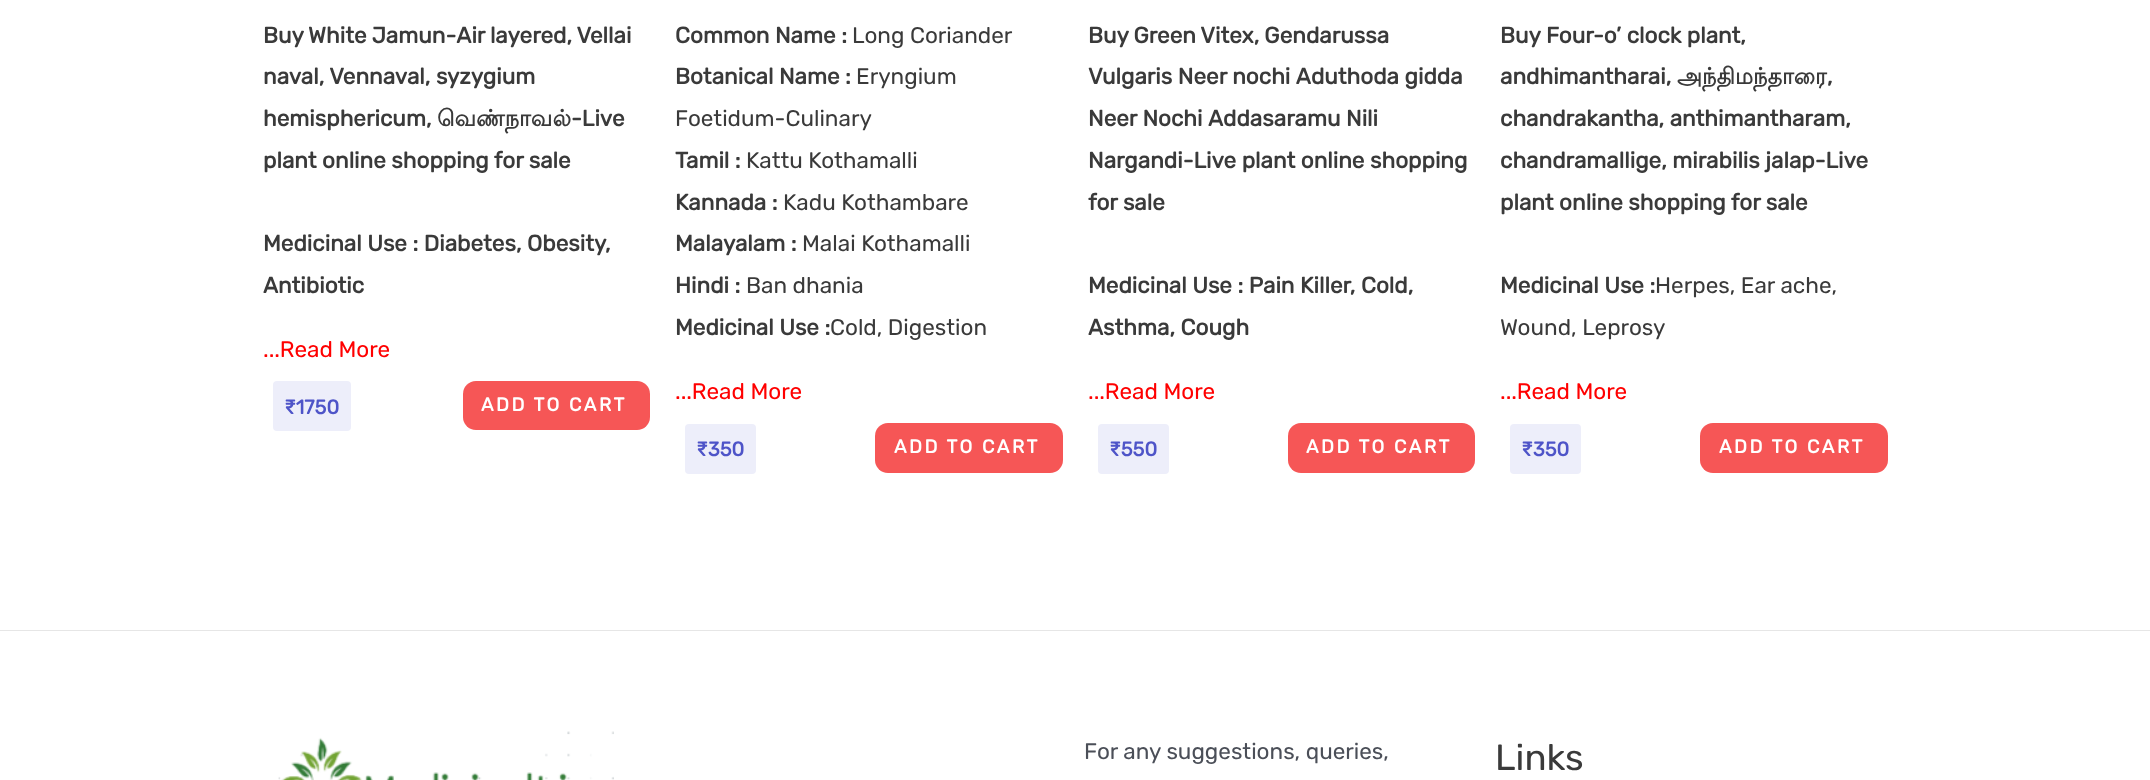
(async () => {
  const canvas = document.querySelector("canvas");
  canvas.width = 2150;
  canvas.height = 780;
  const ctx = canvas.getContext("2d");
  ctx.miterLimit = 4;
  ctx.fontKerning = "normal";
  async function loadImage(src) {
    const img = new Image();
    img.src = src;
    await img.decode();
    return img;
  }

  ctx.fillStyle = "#ffffff";
  ctx.fillRect(0, 0, 2150, 780);
  ctx.fillStyle = "#edeefa";
  ctx.beginPath();
  ctx.roundRect(273, 381, 78, 50, 4);
  ctx.fill();
  ctx.fillStyle = "#f65656";
  ctx.beginPath();
  ctx.roundRect(463, 381, 187, 49, 13);
  ctx.fill();
  ctx.fillStyle = "#edeefa";
  ctx.beginPath();
  ctx.roundRect(685, 424, 71, 50, 4);
  ctx.fill();
  ctx.fillStyle = "#f65656";
  ctx.beginPath();
  ctx.roundRect(875, 423, 188, 50, 13);
  ctx.fill();
  ctx.fillStyle = "#edeefa";
  ctx.beginPath();
  ctx.roundRect(1098, 424, 71, 50, 4);
  ctx.fill();
  ctx.fillStyle = "#f65656";
  ctx.beginPath();
  ctx.roundRect(1288, 423, 187, 50, 13);
  ctx.fill();
  ctx.fillStyle = "#edeefa";
  ctx.beginPath();
  ctx.roundRect(1510, 424, 71, 50, 4);
  ctx.fill();
  ctx.fillStyle = "#f65656";
  ctx.beginPath();
  ctx.roundRect(1700, 423, 188, 50, 13);
  ctx.fill();
  ctx.fillStyle = "#e6e6e6";
  ctx.fillRect(0, 630, 2150, 1);
  ctx.drawImage(await loadImage("img/1.png"), 278, 731, 336, 49);
  ctx.wordSpacing = "-0.5px";
  ctx.font = "bold 22.5px Rubik";
  ctx.fillStyle = "#3a3a3a";
  ctx.fillText("Buy White Jamun-Air layered, Vellai", 263, 43);
  ctx.wordSpacing = "0px";
  ctx.fillText("naval, Vennaval, syzygium", 263, 84);
  ctx.fillText("hemisphericum,", 263, 126);
  ctx.font = "bold 22.5px Lohit Tamil";
  ctx.fillText("வெண்நாவல்", 437, 126);
  ctx.font = "bold 22.5px Rubik";
  for (const [text, x, y] of [
    ["-Live", 571, 126],
    ["plant online shopping for sale", 263, 168],
    ["Medicinal Use : Diabetes, Obesity,", 263, 251],
    ["Antibiotic", 263, 293],
  ]) {
    ctx.fillText(text, x, y);
  }
  ctx.font = "300 22.5px Rubik";
  ctx.fillStyle = "#ff0000";
  ctx.fillText("...Read More", 263, 357);
  ctx.font = "bold 20px Rubik";
  ctx.fillStyle = "#4e54c8";
  ctx.fillText("₹1750", 284, 414);
  ctx.letterSpacing = "2.5px";
  ctx.font = "bold 18.75px Rubik";
  ctx.fillStyle = "#ffffff";
  ctx.fillText("ADD TO CART", 481, 411);
  ctx.letterSpacing = "0px";
  ctx.font = "bold 22.5px Rubik";
  ctx.fillStyle = "#3a3a3a";
  ctx.fillText("Common Name :", 675, 43);
  ctx.font = "300 22.5px Rubik";
  ctx.fillText("Long Coriander", 852, 43);
  ctx.font = "bold 22.5px Rubik";
  ctx.fillText("Botanical Name :", 675, 84);
  ctx.font = "300 22.5px Rubik";
  ctx.fillText("Eryngium", 856, 84);
  ctx.fillText("Foetidum-Culinary", 675, 126);
  ctx.font = "bold 22.5px Rubik";
  ctx.fillText("Tamil :", 675, 168);
  ctx.font = "300 22.5px Rubik";
  ctx.fillText("Kattu Kothamalli", 746, 168);
  ctx.font = "bold 22.5px Rubik";
  ctx.fillText("Kannada :", 675, 210);
  ctx.font = "300 22.5px Rubik";
  ctx.fillText("Kadu Kothambare", 783, 210);
  ctx.font = "bold 22.5px Rubik";
  ctx.fillText("Malayalam :", 675, 251);
  ctx.font = "300 22.5px Rubik";
  ctx.fillText("Malai Kothamalli", 802, 251);
  ctx.font = "bold 22.5px Rubik";
  ctx.fillText("Hindi :", 675, 293);
  ctx.font = "300 22.5px Rubik";
  ctx.fillText("Ban dhania", 746, 293);
  ctx.font = "bold 22.5px Rubik";
  ctx.fillText("Medicinal Use :", 675, 335);
  ctx.font = "300 22.5px Rubik";
  ctx.fillText("Cold, Digestion", 830, 335);
  ctx.fillStyle = "#ff0000";
  ctx.fillText("...Read More", 675, 399);
  ctx.font = "bold 20px Rubik";
  ctx.fillStyle = "#4e54c8";
  ctx.fillText("₹350", 696, 456);
  ctx.letterSpacing = "2.5px";
  ctx.font = "bold 18.75px Rubik";
  ctx.fillStyle = "#ffffff";
  ctx.fillText("ADD TO CART", 894, 453);
  ctx.letterSpacing = "0px";
  ctx.wordSpacing = "-0.5px";
  ctx.font = "bold 22.5px Rubik";
  ctx.fillStyle = "#3a3a3a";
  ctx.fillText("Buy Green Vitex, Gendarussa", 1088, 43);
  ctx.wordSpacing = "0px";
  for (const [text, x, y] of [
    ["Vulgaris Neer nochi Aduthoda gidda", 1088, 84],
    ["Neer Nochi Addasaramu Nili", 1088, 126],
    ["Nargandi-Live plant online shopping", 1088, 168],
    ["for sale", 1088, 210],
    ["Medicinal Use : Pain Killer, Cold,", 1088, 293],
    ["Asthma, Cough", 1088, 335],
  ]) {
    ctx.fillText(text, x, y);
  }
  ctx.font = "300 22.5px Rubik";
  ctx.fillStyle = "#ff0000";
  ctx.fillText("...Read More", 1088, 399);
  ctx.font = "bold 20px Rubik";
  ctx.fillStyle = "#4e54c8";
  ctx.fillText("₹550", 1109, 456);
  ctx.letterSpacing = "2.5px";
  ctx.font = "bold 18.75px Rubik";
  ctx.fillStyle = "#ffffff";
  ctx.fillText("ADD TO CART", 1306, 453);
  ctx.letterSpacing = "0px";
  ctx.font = "bold 22.5px Rubik";
  ctx.fillStyle = "#3a3a3a";
  ctx.fillText("Buy Four-o’ clock plant,", 1500, 43);
  ctx.fillText("andhimantharai,", 1500, 84);
  ctx.font = "bold 22.5px Lohit Tamil";
  ctx.fillText("அந்திமந்தாரை", 1677, 84);
  ctx.font = "bold 22.5px Rubik";
  for (const [text, x, y] of [
    [",", 1827, 84],
    ["chandrakantha, anthimantharam,", 1500, 126],
    ["chandramallige, mirabilis jalap-Live", 1500, 168],
    ["plant online shopping for sale", 1500, 210],
    ["Medicinal Use :", 1500, 293],
  ]) {
    ctx.fillText(text, x, y);
  }
  ctx.font = "300 22.5px Rubik";
  ctx.fillText("Herpes, Ear ache,", 1655, 293);
  ctx.fillText("Wound, Leprosy", 1500, 335);
  ctx.fillStyle = "#ff0000";
  ctx.fillText("...Read More", 1500, 399);
  ctx.font = "bold 20px Rubik";
  ctx.fillStyle = "#4e54c8";
  ctx.fillText("₹350", 1521, 456);
  ctx.letterSpacing = "2.5px";
  ctx.font = "bold 18.75px Rubik";
  ctx.fillStyle = "#ffffff";
  ctx.fillText("ADD TO CART", 1719, 453);
  ctx.letterSpacing = "0px";
  ctx.font = "300 22.5px Rubik";
  ctx.fillStyle = "#4b4f58";
  ctx.fillText("For any suggestions, queries,", 1084, 759);
  ctx.font = "300 36.5px Rubik";
  ctx.fillStyle = "#3a3a3a";
  ctx.fillText("Links", 1495, 770);
})();
